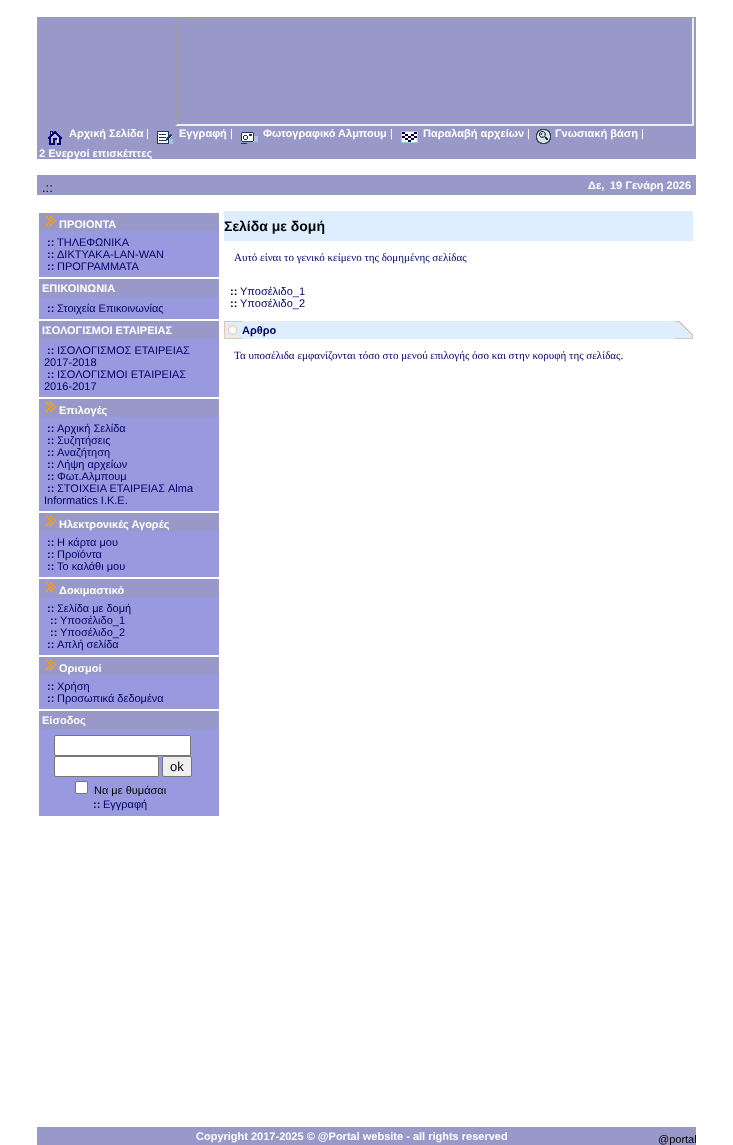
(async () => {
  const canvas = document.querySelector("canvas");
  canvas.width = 733;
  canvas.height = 1145;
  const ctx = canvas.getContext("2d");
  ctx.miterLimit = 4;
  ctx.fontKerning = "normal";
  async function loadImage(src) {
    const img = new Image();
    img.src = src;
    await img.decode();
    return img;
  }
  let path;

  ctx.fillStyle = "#ffffff";
  ctx.fillRect(0, 0, 733, 1145);
  ctx.fillStyle = "#9999c9";
  ctx.fillRect(37, 17, 659, 142);
  ctx.fillStyle = "#9f9f9f";
  path = new Path2D("M175 17H694L692 19H177Z");
  ctx.fill(path);
  ctx.fillStyle = "#eeeeee";
  path = new Path2D("M694 17V126L692 124V19Z");
  ctx.fill(path);
  path = new Path2D("M694 126H175L177 124H692Z");
  ctx.fill(path);
  ctx.fillStyle = "#9f9f9f";
  path = new Path2D("M175 126V17L177 19V124Z");
  ctx.fill(path);
  ctx.drawImage(await loadImage("img/1.png"), 48, 131, 14, 14);
  ctx.drawImage(await loadImage("img/2.png"), 157, 131, 16, 13);
  ctx.drawImage(await loadImage("img/3.png"), 241, 132, 17, 12);
  ctx.drawImage(await loadImage("img/4.png"), 401, 131, 17, 12);
  ctx.drawImage(await loadImage("img/5.png"), 536, 129, 15, 15);
  ctx.fillStyle = "#9999c9";
  ctx.fillRect(37, 175, 659, 20);
  ctx.fillRect(39, 213, 180, 18);
  ctx.drawImage(await loadImage("img/6.png"), 46, 216, 10, 10);
  for (const [x, y, w, h, color] of [
    [39, 231, 180, 46, "#9999df"],
    [39, 279, 180, 18, "#9999c9"],
    [39, 297, 180, 22, "#9999df"],
    [39, 321, 180, 18, "#9999c9"],
    [39, 339, 180, 58, "#9999df"],
    [39, 399, 180, 18, "#9999c9"],
  ]) {
    ctx.fillStyle = color;
    ctx.fillRect(x, y, w, h);
  }
  ctx.drawImage(await loadImage("img/6.png"), 46, 402, 10, 10);
  ctx.fillStyle = "#9999df";
  ctx.fillRect(39, 417, 180, 94);
  ctx.fillStyle = "#9999c9";
  ctx.fillRect(39, 513, 180, 18);
  ctx.drawImage(await loadImage("img/6.png"), 46, 516, 10, 10);
  ctx.fillStyle = "#9999df";
  ctx.fillRect(39, 531, 180, 46);
  ctx.fillStyle = "#9999c9";
  ctx.fillRect(39, 579, 180, 18);
  ctx.drawImage(await loadImage("img/6.png"), 46, 582, 10, 10);
  ctx.fillStyle = "#9999df";
  ctx.fillRect(39, 597, 180, 58);
  ctx.fillStyle = "#9999c9";
  ctx.fillRect(39, 657, 180, 18);
  ctx.drawImage(await loadImage("img/6.png"), 46, 660, 10, 10);
  for (const [x, y, w, h, color] of [
    [39, 675, 180, 34, "#9999df"],
    [39, 711, 180, 18, "#9999c9"],
    [39, 729, 180, 87, "#9999df"],
  ]) {
    ctx.fillStyle = color;
    ctx.fillRect(x, y, w, h);
  }
  ctx.fillStyle = "#ffffff";
  ctx.beginPath();
  ctx.roundRect(54.5, 735.5, 136, 20, 1.5);
  ctx.fill();
  ctx.strokeStyle = "#767676";
  ctx.stroke();
  ctx.beginPath();
  ctx.roundRect(54.5, 756.5, 104, 20, 1.5);
  ctx.fill();
  ctx.stroke();
  ctx.fillStyle = "#efefef";
  ctx.beginPath();
  ctx.roundRect(162.5, 756.5, 29, 20, 1.5);
  ctx.fill();
  ctx.stroke();
  ctx.fillStyle = "#ffffff";
  ctx.beginPath();
  ctx.roundRect(75.5, 781.5, 12, 12, 1.5);
  ctx.fill();
  ctx.stroke();
  ctx.fillStyle = "#dfeeff";
  ctx.fillRect(224, 211, 469, 30);
  ctx.drawImage(await loadImage("img/7.png"), 224, 321, 18, 18);
  ctx.fillRect(242, 321, 433, 18);
  ctx.drawImage(await loadImage("img/8.png"), 675, 321, 18, 18);
  ctx.fillStyle = "#9999c9";
  ctx.fillRect(37, 1127, 659, 18);
  ctx.font = "bold 11px Liberation Sans";
  ctx.fillStyle = "#ffffff";
  ctx.fillText("Αρχική Σελίδα", 69, 137);
  ctx.font = "11px Liberation Sans";
  ctx.fillText("|", 146, 137);
  ctx.font = "bold 11px Liberation Sans";
  ctx.fillText("Εγγραφή", 179, 137);
  ctx.font = "11px Liberation Sans";
  ctx.fillText("|", 230, 137);
  ctx.font = "bold 11px Liberation Sans";
  ctx.fillText("Φωτογραφικό Αλμπουμ", 263, 137);
  ctx.font = "11px Liberation Sans";
  ctx.fillText("|", 390, 137);
  ctx.font = "bold 11px Liberation Sans";
  ctx.fillText("Παραλαβή αρχείων", 423, 137);
  ctx.font = "11px Liberation Sans";
  ctx.fillText("|", 527, 137);
  ctx.font = "bold 11px Liberation Sans";
  ctx.fillText("Γνωσιακή βάση", 555, 137);
  ctx.font = "11px Liberation Sans";
  ctx.fillText("|", 641, 137);
  ctx.font = "bold 11px Liberation Sans";
  ctx.fillText("2 Ενεργοί επισκέπτες", 39, 157);
  ctx.font = "13px Liberation Sans";
  ctx.fillStyle = "#010101";
  ctx.fillText(".::", 42, 192);
  ctx.font = "bold 11px Liberation Sans";
  ctx.fillStyle = "#ffffff";
  for (const [text, x, y] of [
    ["Δε,", 588, 189],
    ["19 Γενάρη 2026", 610, 189],
    ["ΠΡΟΙΟΝΤΑ", 59, 228],
  ]) {
    ctx.fillText(text, x, y);
  }
  ctx.fillStyle = "#000066";
  ctx.fillText("::", 47, 246);
  ctx.font = "11px Liberation Sans";
  ctx.fillText("ΤΗΛΕΦΩΝΙΚΑ", 57, 246);
  ctx.font = "bold 11px Liberation Sans";
  ctx.fillText("::", 47, 258);
  ctx.font = "11px Liberation Sans";
  ctx.fillText("ΔΙΚΤΥΑΚΑ-LAN-WAN", 57, 258);
  ctx.font = "bold 11px Liberation Sans";
  ctx.fillText("::", 47, 270);
  ctx.font = "11px Liberation Sans";
  ctx.fillText("ΠΡΟΓΡΑΜΜΑΤΑ", 57, 270);
  ctx.font = "bold 11px Liberation Sans";
  ctx.fillStyle = "#ffffff";
  ctx.fillText("ΕΠΙΚΟΙΝΩΝΙΑ", 42, 292);
  ctx.fillStyle = "#000066";
  ctx.fillText("::", 47, 312);
  ctx.font = "11px Liberation Sans";
  ctx.fillText("Στοιχεία Επικοινωνίας", 57, 312);
  ctx.font = "bold 11px Liberation Sans";
  ctx.fillStyle = "#ffffff";
  ctx.fillText("ΙΣΟΛΟΓΙΣΜΟΙ ΕΤΑΙΡΕΙΑΣ", 42, 334);
  ctx.fillStyle = "#000066";
  ctx.fillText("::", 47, 354);
  ctx.font = "11px Liberation Sans";
  ctx.fillText("ΙΣΟΛΟΓΙΣΜΟΣ ΕΤΑΙΡΕΙΑΣ", 57, 354);
  ctx.fillText("2017-2018", 44, 366);
  ctx.font = "bold 11px Liberation Sans";
  ctx.fillText("::", 47, 378);
  ctx.font = "11px Liberation Sans";
  ctx.fillText("ΙΣΟΛΟΓΙΣΜΟΙ ΕΤΑΙΡΕΙΑΣ", 57, 378);
  ctx.fillText("2016-2017", 44, 390);
  ctx.font = "bold 11px Liberation Sans";
  ctx.fillStyle = "#ffffff";
  ctx.fillText("Επιλογές", 59, 414);
  ctx.fillStyle = "#000066";
  ctx.fillText("::", 47, 432);
  ctx.font = "11px Liberation Sans";
  ctx.fillText("Αρχική Σελίδα", 57, 432);
  ctx.font = "bold 11px Liberation Sans";
  ctx.fillText("::", 47, 444);
  ctx.font = "11px Liberation Sans";
  ctx.fillText("Συζητήσεις", 57, 444);
  ctx.font = "bold 11px Liberation Sans";
  ctx.fillText("::", 47, 456);
  ctx.font = "11px Liberation Sans";
  ctx.fillText("Αναζήτηση", 57, 456);
  ctx.font = "bold 11px Liberation Sans";
  ctx.fillText("::", 47, 468);
  ctx.font = "11px Liberation Sans";
  ctx.fillText("Λήψη αρχείων", 57, 468);
  ctx.font = "bold 11px Liberation Sans";
  ctx.fillText("::", 47, 480);
  ctx.font = "11px Liberation Sans";
  ctx.fillText("Φωτ.Αλμπουμ", 57, 480);
  ctx.font = "bold 11px Liberation Sans";
  ctx.fillText("::", 47, 492);
  ctx.font = "11px Liberation Sans";
  ctx.fillText("ΣΤΟΙΧΕΙΑ ΕΤΑΙΡΕΙΑΣ Alma", 57, 492);
  ctx.fillText("Informatics I.K.E.", 44, 504);
  ctx.font = "bold 11px Liberation Sans";
  ctx.fillStyle = "#ffffff";
  ctx.fillText("Ηλεκτρονικές Αγορές", 59, 528);
  ctx.fillStyle = "#000066";
  ctx.fillText("::", 47, 546);
  ctx.font = "11px Liberation Sans";
  ctx.fillText("Η κάρτα μου", 57, 546);
  ctx.font = "bold 11px Liberation Sans";
  ctx.fillText("::", 47, 558);
  ctx.font = "11px Liberation Sans";
  ctx.fillText("Προϊόντα", 57, 558);
  ctx.font = "bold 11px Liberation Sans";
  ctx.fillText("::", 47, 570);
  ctx.font = "11px Liberation Sans";
  ctx.fillText("Το καλάθι μου", 57, 570);
  ctx.font = "bold 11px Liberation Sans";
  ctx.fillStyle = "#ffffff";
  ctx.fillText("Δοκιμαστικό", 59, 594);
  ctx.fillStyle = "#000066";
  ctx.fillText("::", 47, 612);
  ctx.font = "11px Liberation Sans";
  ctx.fillText("Σελίδα με δομή", 57, 612);
  ctx.font = "bold 11px Liberation Sans";
  ctx.fillText("::", 50, 624);
  ctx.font = "11px Liberation Sans";
  ctx.fillText("Υποσέλιδο_1", 60, 624);
  ctx.font = "bold 11px Liberation Sans";
  ctx.fillText("::", 50, 636);
  ctx.font = "11px Liberation Sans";
  ctx.fillText("Υποσέλιδο_2", 60, 636);
  ctx.font = "bold 11px Liberation Sans";
  ctx.fillText("::", 47, 648);
  ctx.font = "11px Liberation Sans";
  ctx.fillText("Απλή σελίδα", 57, 648);
  ctx.font = "bold 11px Liberation Sans";
  ctx.fillStyle = "#ffffff";
  ctx.fillText("Ορισμοί", 59, 672);
  ctx.fillStyle = "#000066";
  ctx.fillText("::", 47, 690);
  ctx.font = "11px Liberation Sans";
  ctx.fillText("Χρήση", 57, 690);
  ctx.font = "bold 11px Liberation Sans";
  ctx.fillText("::", 47, 702);
  ctx.font = "11px Liberation Sans";
  ctx.fillText("Προσωπικά δεδομένα", 57, 702);
  ctx.font = "bold 11px Liberation Sans";
  ctx.fillStyle = "#ffffff";
  ctx.fillText("Είσοδος", 42, 724);
  ctx.font = "13px Liberation Sans";
  ctx.fillStyle = "#010101";
  ctx.fillText("ok", 170, 771);
  ctx.font = "11px Liberation Sans";
  ctx.fillText("Να με θυμάσαι", 94, 794);
  ctx.font = "bold 11px Liberation Sans";
  ctx.fillText("::", 93, 808);
  ctx.font = "11px Liberation Sans";
  ctx.fillStyle = "#000066";
  ctx.fillText("Εγγραφή", 103, 808);
  ctx.font = "bold 14px Liberation Sans";
  ctx.fillStyle = "#010101";
  ctx.fillText("Σελίδα με δομή", 224, 231);
  ctx.font = "11px Liberation Serif";
  ctx.fillStyle = "#000066";
  ctx.fillText("Αυτό είναι το γενικό κείμενο της δομημένης σελίδας", 234, 261);
  ctx.font = "bold 11px Liberation Sans";
  ctx.fillStyle = "#010101";
  ctx.fillText("::", 230, 295);
  ctx.font = "11px Liberation Sans";
  ctx.fillStyle = "#000066";
  ctx.fillText("Υποσέλιδο_1", 240, 295);
  ctx.font = "bold 11px Liberation Sans";
  ctx.fillStyle = "#010101";
  ctx.fillText("::", 230, 307);
  ctx.font = "11px Liberation Sans";
  ctx.fillStyle = "#000066";
  ctx.fillText("Υποσέλιδο_2", 240, 307);
  ctx.font = "bold 11px Liberation Sans";
  ctx.fillText("Αρθρο", 242, 334);
  ctx.font = "11px Liberation Serif";
  ctx.fillText("Τα υποσέλιδα εμφανίζονται τόσο στο μενού επιλογής όσο και στην κορυφή της σελίδας.", 234, 359);
  ctx.font = "bold 11px Liberation Sans";
  ctx.fillStyle = "#ffffff";
  ctx.fillText("Copyright 2017-2025 © @Portal website - all rights reserved", 196, 1140);
  ctx.font = "11px Liberation Sans";
  ctx.fillStyle = "#010101";
  ctx.fillText("@portal", 658, 1143);
})();
